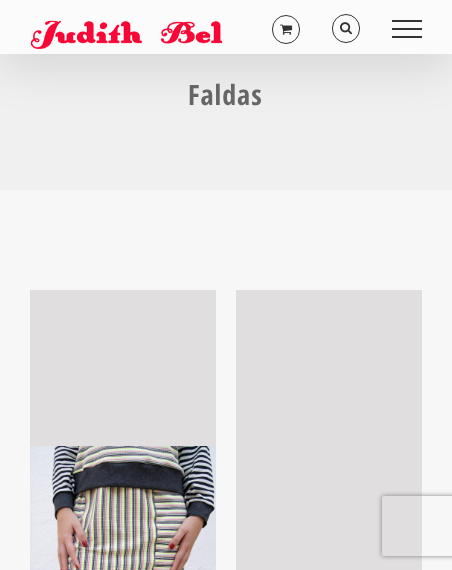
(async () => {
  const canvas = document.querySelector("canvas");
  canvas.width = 452;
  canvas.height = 570;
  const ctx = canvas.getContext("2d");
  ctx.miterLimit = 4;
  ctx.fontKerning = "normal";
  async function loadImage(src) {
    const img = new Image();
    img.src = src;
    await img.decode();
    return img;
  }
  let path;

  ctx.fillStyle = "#f7f7f7";
  ctx.fillRect(0, 0, 452, 570);
  ctx.fillStyle = "#f0f0f0";
  ctx.fillRect(0, 54, 452, 136);
  ctx.fillStyle = "rgba(0, 0, 0, 0.14)";
  ctx.filter = "blur(25px)";
  ctx.beginPath();
  ctx.rect(2, 12, 448, 50);
  ctx.fill();
  ctx.filter = "none";
  ctx.fillStyle = "#fbfbfb";
  ctx.fillRect(0, 0, 452, 54);
  ctx.drawImage(await loadImage("img/1.png"), 30, 20, 193, 29);
  ctx.beginPath();
  ctx.roundRect(272.5, 15.5, 27, 28, 13.5);
  ctx.strokeStyle = "#333333";
  ctx.stroke();
  ctx.drawImage(await loadImage("img/2.png"), 280, 24, 13, 11);
  ctx.beginPath();
  ctx.roundRect(332.5, 14.5, 27, 28, 13.5);
  ctx.stroke();
  ctx.drawImage(await loadImage("img/3.png"), 340, 22, 12, 13);
  for (const [x, y, w, h, color] of [
    [392, 20, 30, 2, "#333333"],
    [392, 28, 30, 2, "#333333"],
    [392, 36, 30, 2, "#333333"],
    [30, 290, 186, 156, "#e0dede"],
  ]) {
    ctx.fillStyle = color;
    ctx.fillRect(x, y, w, h);
  }
  ctx.drawImage(await loadImage("img/4.png"), 30, 446, 186, 124);
  ctx.fillRect(236, 290, 186, 280);
  ctx.save();
  path = new Path2D("M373 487H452V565H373ZM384 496H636C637 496 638 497 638 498V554C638 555 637 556 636 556H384C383 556 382 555 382 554V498C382 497 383 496 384 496Z");
  ctx.clip(path, "evenodd");
  ctx.fillStyle = "#808080";
  ctx.filter = "blur(2.5px)";
  ctx.beginPath();
  ctx.roundRect(382, 496, 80, 60, 2);
  ctx.fill();
  ctx.filter = "none";
  ctx.restore();
  ctx.letterSpacing = "1px";
  ctx.font = "bold 28px Open Sans Condensed";
  ctx.fillStyle = "#666666";
  ctx.fillText("Faldas", 188, 105);
})();
